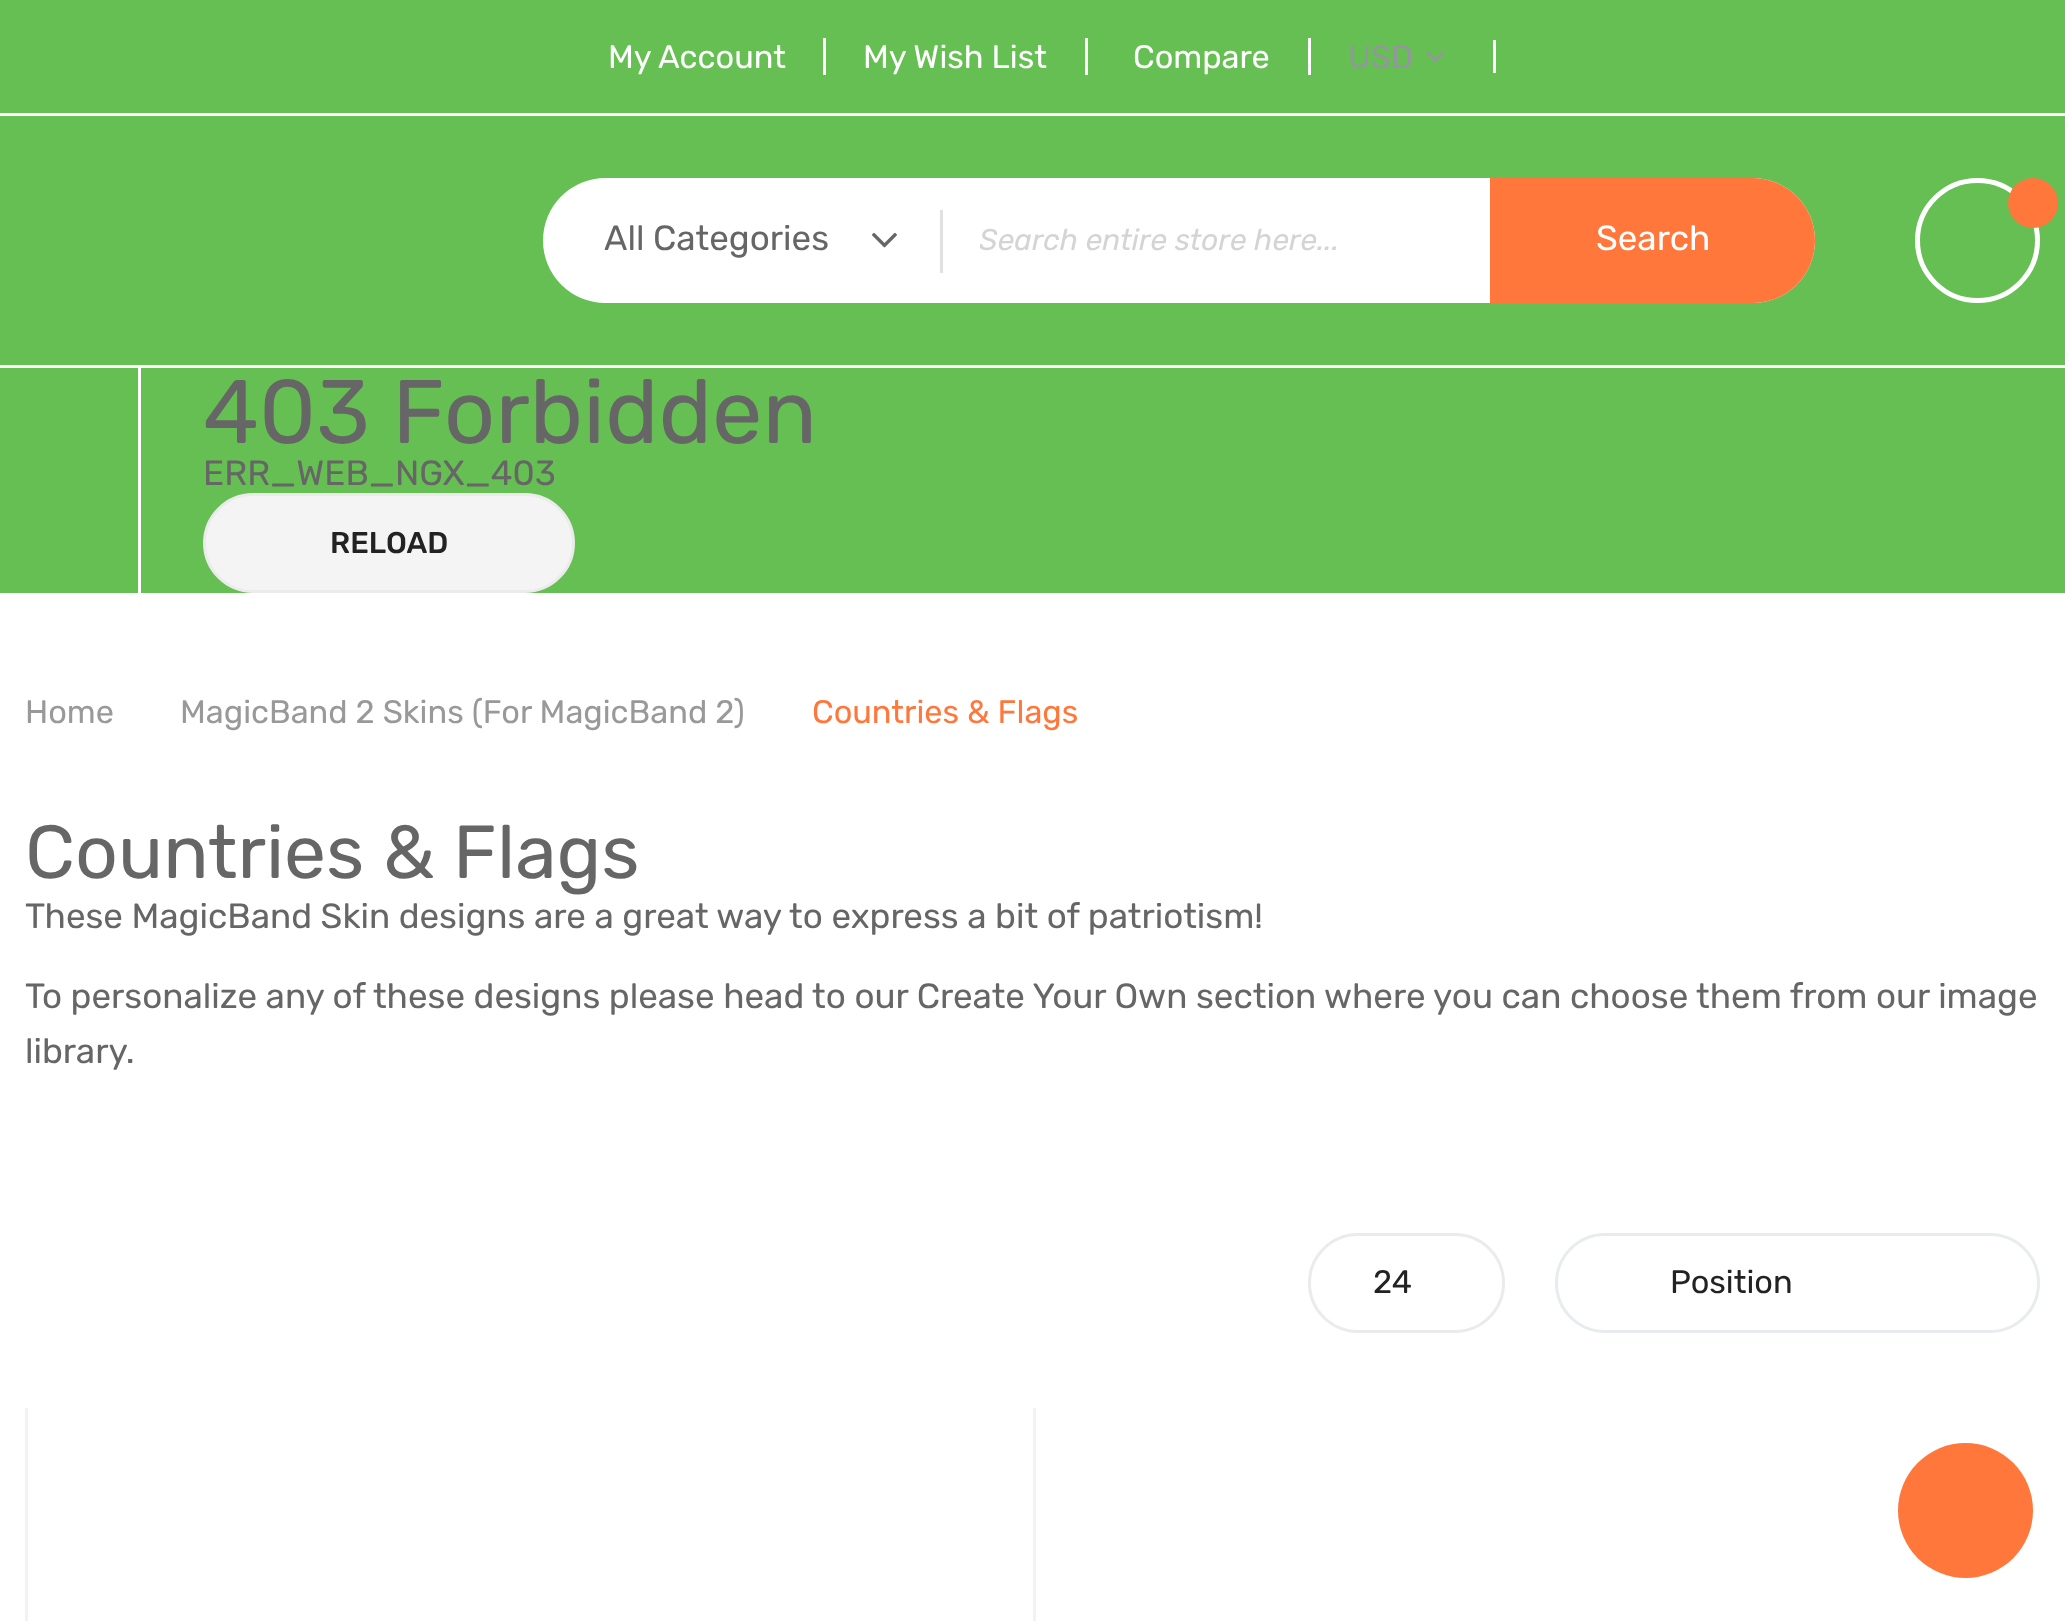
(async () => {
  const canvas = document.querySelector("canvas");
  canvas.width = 2065;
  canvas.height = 1621;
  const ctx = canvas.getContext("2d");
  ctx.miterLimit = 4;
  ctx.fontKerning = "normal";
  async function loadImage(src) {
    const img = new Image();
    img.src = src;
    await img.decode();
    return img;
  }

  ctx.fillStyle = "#ffffff";
  ctx.fillRect(0, 0, 2065, 1621);
  for (const [x, y, w, h, color] of [
    [0, 0, 2065, 593, "#66bf53"],
    [823, 38, 3, 37, "#ffffff"],
    [1085, 38, 3, 37, "#ffffff"],
    [1308, 38, 3, 37, "#ffffff"],
    [1493, 40, 3, 33, "#ffffff"],
  ]) {
    ctx.fillStyle = color;
    ctx.fillRect(x, y, w, h);
  }
  ctx.drawImage(await loadImage("img/1.png"), 1426, 51, 19, 11);
  ctx.fillRect(0, 113, 2065, 3);
  ctx.fillRect(0, 365, 2065, 3);
  ctx.beginPath();
  ctx.roundRect(543, 178, 1272, 125, 62.5);
  ctx.fill();
  ctx.drawImage(await loadImage("img/2.png"), 872, 232, 25, 16);
  ctx.fillStyle = "#e1e1e1";
  ctx.fillRect(940, 210, 3, 63);
  ctx.fillStyle = "#ff773b";
  ctx.beginPath();
  ctx.roundRect(1490, 178, 325, 125, [0, 62.5, 62.5, 0]);
  ctx.fill();
  ctx.beginPath();
  ctx.arc(1977.5, 240.5, 60, 0, Math.PI * 2);
  ctx.strokeStyle = "#ffffff";
  ctx.lineWidth = 5;
  ctx.stroke();
  ctx.beginPath();
  ctx.arc(2033, 203, 25, 0, Math.PI * 2);
  ctx.fill();
  ctx.fillStyle = "#ffffff";
  ctx.fillRect(138, 368, 3, 225);
  ctx.fillStyle = "#f4f4f4";
  ctx.beginPath();
  ctx.roundRect(204.5, 494.5, 369, 97, 48.5);
  ctx.fill();
  ctx.strokeStyle = "#ebebeb";
  ctx.lineWidth = 3;
  ctx.stroke();
  ctx.beginPath();
  ctx.roundRect(1309.5, 1234.5, 194, 97, 48.5);
  ctx.stroke();
  ctx.beginPath();
  ctx.roundRect(1556.5, 1234.5, 482, 97, 48.5);
  ctx.strokeStyle = "#e8ecef";
  ctx.stroke();
  ctx.fillStyle = "#f2f2f2";
  ctx.fillRect(25, 1408, 3, 213);
  ctx.fillRect(1033, 1408, 3, 213);
  ctx.fillStyle = "#ff773b";
  ctx.beginPath();
  ctx.arc(1965.5, 1510.5, 67.5, 0, Math.PI * 2);
  ctx.fill();
  ctx.font = "32.5px Rubik";
  ctx.fillStyle = "#ffffff";
  for (const [text, x, y] of [
    ["My Account", 608, 68],
    ["My Wish List", 863, 68],
    ["Compare", 1133, 68],
  ]) {
    ctx.fillText(text, x, y);
  }
  ctx.fillStyle = "#93979c";
  ctx.fillText("USD", 1348, 68);
  ctx.font = "35px Rubik";
  ctx.fillStyle = "#666666";
  ctx.fillText("All Categories", 604, 250);
  ctx.save();
  ctx.beginPath();
  ctx.rect(980, 223, 510, 35);
  ctx.clip();
  ctx.font = "italic 30px Rubik";
  ctx.fillStyle = "#d4d4d4";
  ctx.fillText("Search entire store here...", 979, 250);
  ctx.restore();
  ctx.fillStyle = "#ffffff";
  ctx.fillText("Search", 1596, 250);
  ctx.font = "90px Rubik";
  ctx.fillStyle = "#666666";
  ctx.fillText("403 Forbidden", 203, 443);
  ctx.font = "35px Rubik";
  ctx.fillText("ERR_WEB_NGX_403", 203, 485);
  ctx.font = "500 30px Rubik";
  ctx.fillStyle = "#222222";
  ctx.fillText("RELOAD", 330, 553);
  ctx.font = "32.5px Rubik";
  ctx.fillStyle = "#999999";
  ctx.fillText("Home", 25, 723);
  ctx.fillText("MagicBand 2 Skins (For MagicBand 2)", 180, 723);
  ctx.fillStyle = "#ff773b";
  ctx.fillText("Countries & Flags", 812, 723);
  ctx.font = "75px Rubik";
  ctx.fillStyle = "#666666";
  ctx.fillText("Countries & Flags", 25, 878);
  ctx.font = "35px Rubik";
  for (const [text, x, y] of [
    ["These MagicBand Skin designs are a great way to express a bit of patriotism!", 25, 928],
    ["To personalize any of these designs please head to our Create Your Own section where you can choose them from our image", 25, 1008],
    ["library.", 25, 1063],
  ]) {
    ctx.fillText(text, x, y);
  }
  ctx.font = "32.5px Rubik";
  ctx.fillStyle = "#222222";
  ctx.fillText("24", 1373, 1293);
  ctx.fillText("Position", 1670, 1293);
})();
